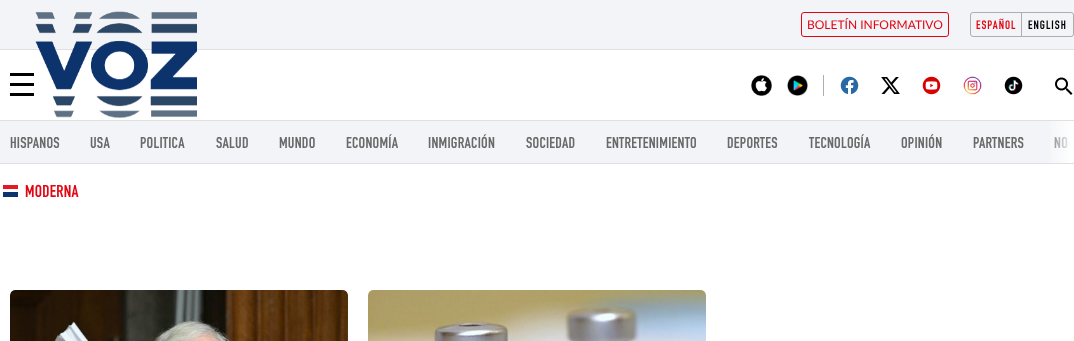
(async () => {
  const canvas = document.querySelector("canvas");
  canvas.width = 1074;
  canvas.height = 341;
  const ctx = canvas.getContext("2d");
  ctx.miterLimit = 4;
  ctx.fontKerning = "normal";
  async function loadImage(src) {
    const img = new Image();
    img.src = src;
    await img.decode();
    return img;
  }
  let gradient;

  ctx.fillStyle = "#ffffff";
  ctx.fillRect(0, 0, 1074, 341);
  for (const [x, y, w, h, color] of [
    [10, 83, 24, 3, "#000000"],
    [10, 73, 24, 3, "#000000"],
    [10, 93, 24, 3, "#000000"],
    [0, 0, 1074, 49, "#f2f4f7"],
    [0, 49, 1074, 1, "#e0e0e0"],
  ]) {
    ctx.fillStyle = color;
    ctx.fillRect(x, y, w, h);
  }
  ctx.drawImage(await loadImage("img/1.png"), 35, 11, 162, 107);
  ctx.drawImage(await loadImage("img/2.png"), 751, 75, 21, 21);
  ctx.drawImage(await loadImage("img/3.png"), 787, 75, 21, 21);
  ctx.fillStyle = "#aeaeae";
  ctx.fillRect(823, 75, 1, 21);
  ctx.drawImage(await loadImage("img/4.png"), 840, 76, 19, 19);
  ctx.drawImage(await loadImage("img/5.png"), 881, 77, 19, 17);
  ctx.drawImage(await loadImage("img/6.png"), 922, 76, 19, 19);
  ctx.drawImage(await loadImage("img/7.png"), 963, 76, 19, 19);
  ctx.drawImage(await loadImage("img/8.png"), 1004, 76, 19, 19);
  ctx.beginPath();
  ctx.roundRect(801.5, 12.5, 147, 24, 2.5);
  ctx.strokeStyle = "#e20613";
  ctx.stroke();
  ctx.beginPath();
  ctx.roundRect(970.5, 12.5, 103, 24, 2.5);
  ctx.strokeStyle = "#aeaeae";
  ctx.stroke();
  ctx.fillRect(1021, 13, 1, 23);
  ctx.drawImage(await loadImage("img/9.png"), 1055, 77, 18, 18);
  for (const [x, y, w, h, color] of [
    [0, 121, 1074, 42, "#f2f4f7"],
    [0, 120, 1074, 1, "#e0e0e0"],
    [0, 163, 1074, 1, "#e0e0e0"],
    [3, 192, 15, 5, "#0c336b"],
    [3, 185, 15, 4, "#e41925"],
  ]) {
    ctx.fillStyle = color;
    ctx.fillRect(x, y, w, h);
  }
  ctx.drawImage(await loadImage("img/10.png"), 10, 290, 338, 51);
  ctx.drawImage(await loadImage("img/11.png"), 368, 290, 338, 51);
  ctx.font = "12px Lato";
  ctx.fillStyle = "#e20613";
  ctx.fillText("BOLETÍN INFORMATIVO", 807, 29);
  ctx.letterSpacing = "1px";
  ctx.font = "bold 12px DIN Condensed";
  ctx.fillText("ESPAÑOL", 976, 29);
  ctx.fillStyle = "#000000";
  ctx.fillText("ENGLISH", 1028, 29);
  ctx.letterSpacing = "0.25px";
  ctx.font = "bold 15.5px DIN Condensed";
  ctx.fillStyle = "#696969";
  for (const [text, x, y] of [
    ["HISPANOS", 10, 148],
    ["USA", 90, 148],
    ["POLITICA", 140, 148],
    ["SALUD", 216, 148],
    ["MUNDO", 279, 148],
    ["ECONOMÍA", 346, 148],
    ["INMIGRACIÓN", 428, 148],
    ["SOCIEDAD", 526, 148],
    ["ENTRETENIMIENTO", 606, 148],
    ["DEPORTES", 727, 148],
    ["TECNOLOGÍA", 809, 148],
    ["OPINIÓN", 901, 148],
    ["PARTNERS", 973, 148],
    ["NO", 1054, 148],
  ]) {
    ctx.fillText(text, x, y);
  }
  gradient = ctx.createLinearGradient(1044, 142, 1074, 142);
  gradient.addColorStop(0, "rgba(255, 255, 255, 0)");
  gradient.addColorStop(1, "#ffffff");
  ctx.fillStyle = gradient;
  ctx.fillRect(1050, 121, 24, 42);
  ctx.font = "bold 17px DIN Condensed";
  ctx.fillStyle = "#e20613";
  ctx.fillText("MODERNA", 25, 197);
})();
